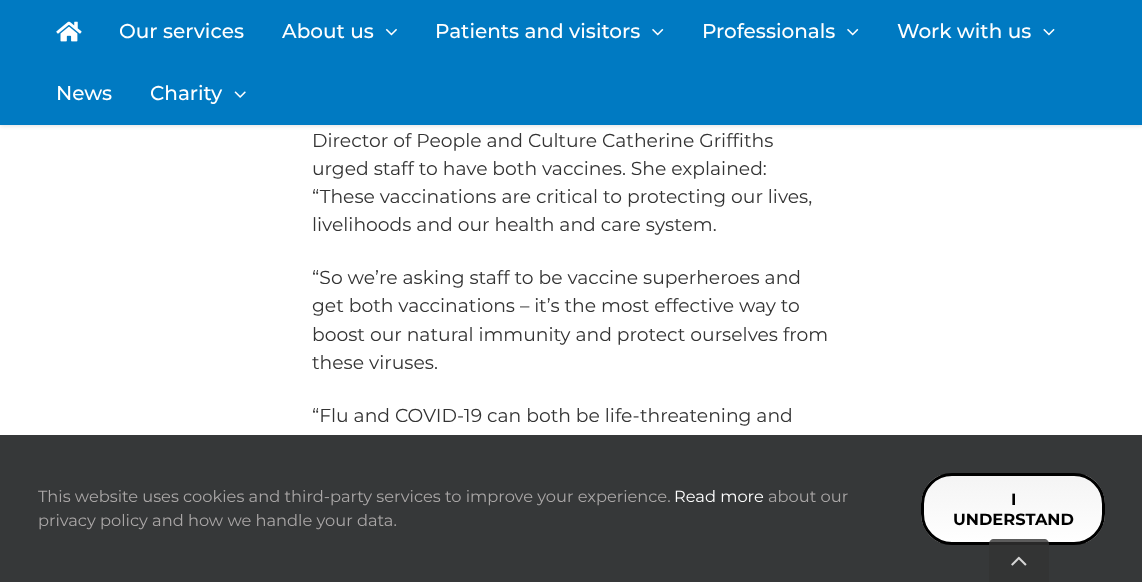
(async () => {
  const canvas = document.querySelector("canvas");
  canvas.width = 1142;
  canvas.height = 582;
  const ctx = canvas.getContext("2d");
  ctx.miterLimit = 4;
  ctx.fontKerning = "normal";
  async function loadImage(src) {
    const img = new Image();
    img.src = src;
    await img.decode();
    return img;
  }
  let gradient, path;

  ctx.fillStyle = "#ffffff";
  ctx.fillRect(0, 0, 1142, 582);
  ctx.fillStyle = "rgba(0, 0, 0, 0.12)";
  ctx.filter = "blur(2px)";
  ctx.beginPath();
  ctx.rect(0, 1, 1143, 125);
  ctx.fill();
  ctx.filter = "none";
  ctx.fillStyle = "#007ac2";
  ctx.fillRect(0, 0, 1142, 125);
  ctx.drawImage(await loadImage("img/1.png"), 56, 21, 26, 21);
  ctx.drawImage(await loadImage("img/2.png"), 385, 28, 12, 8);
  ctx.drawImage(await loadImage("img/3.png"), 652, 28, 12, 8);
  ctx.drawImage(await loadImage("img/3.png"), 847, 28, 12, 8);
  ctx.drawImage(await loadImage("img/4.png"), 1043, 28, 12, 8);
  ctx.drawImage(await loadImage("img/5.png"), 234, 91, 12, 7);
  ctx.fillStyle = "#363839";
  ctx.fillRect(0, 435, 1142, 147);
  ctx.save();
  ctx.beginPath();
  ctx.roundRect(921, 473, 184, 72, 31);
  ctx.clip();
  gradient = ctx.createLinearGradient(1013, 543, 1013, 475);
  gradient.addColorStop(0, "#ffffff");
  gradient.addColorStop(1, "#f4f4f4");
  ctx.fillStyle = gradient;
  ctx.fillRect(921, 475, 184, 68);
  ctx.restore();
  ctx.beginPath();
  ctx.roundRect(922.5, 474.5, 181, 69, 29.5);
  ctx.strokeStyle = "#000000";
  ctx.lineWidth = 3;
  ctx.stroke();
  ctx.fillStyle = "rgba(51, 51, 51, 0.8)";
  path = new Path2D("M994 539H1044C1047 539 1049 541 1049 544V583H989V544C989 541 991 539 994 539Z");
  ctx.fill(path);
  ctx.drawImage(await loadImage("img/6.png"), 1011, 556, 16, 10);
  ctx.font = "100 20px 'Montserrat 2'";
  ctx.fillStyle = "#ffffff";
  for (const [text, x, y] of [
    ["Our services", 119, 38],
    ["About us", 282, 38],
    ["Patients and visitors", 435, 38],
    ["Professionals", 702, 38],
    ["Work with us", 897, 38],
    ["News", 56, 100],
    ["Charity", 150, 100],
  ]) {
    ctx.fillText(text, x, y);
  }
  ctx.font = "100 18.75px Montserrat";
  ctx.fillStyle = "#333333";
  for (const [text, x, y] of [
    ["Director of People and Culture Catherine Griffiths", 312, 147],
    ["urged staff to have both vaccines. She explained:", 312, 175],
    ["“These vaccinations are critical to protecting our lives,", 312, 203],
    ["livelihoods and our health and care system.", 312, 231],
    ["“So we’re asking staff to be vaccine superheroes and", 312, 284],
    ["get both vaccinations – it’s the most effective way to", 312, 312],
    ["boost our natural immunity and protect ourselves from", 312, 341],
    ["these viruses.", 312, 369],
    ["“Flu and COVID-19 can both be life-threatening and", 312, 422],
  ]) {
    ctx.fillText(text, x, y);
  }
  ctx.font = "100 16.25px Montserrat";
  ctx.fillStyle = "#aaa7a7";
  ctx.fillText("This website uses cookies and third-party services to improve your experience.", 38, 502);
  ctx.fillStyle = "#ffffff";
  ctx.fillText("Read more", 674, 502);
  ctx.fillStyle = "#aaa7a7";
  ctx.fillText("about our", 768, 502);
  ctx.fillText("privacy policy and how we handle your data.", 38, 526);
  ctx.font = "100 16.25px 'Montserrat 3'";
  ctx.fillStyle = "#000000";
  ctx.fillText("I", 1011, 505);
  ctx.fillText("UNDERSTAND", 953, 525);
})();
